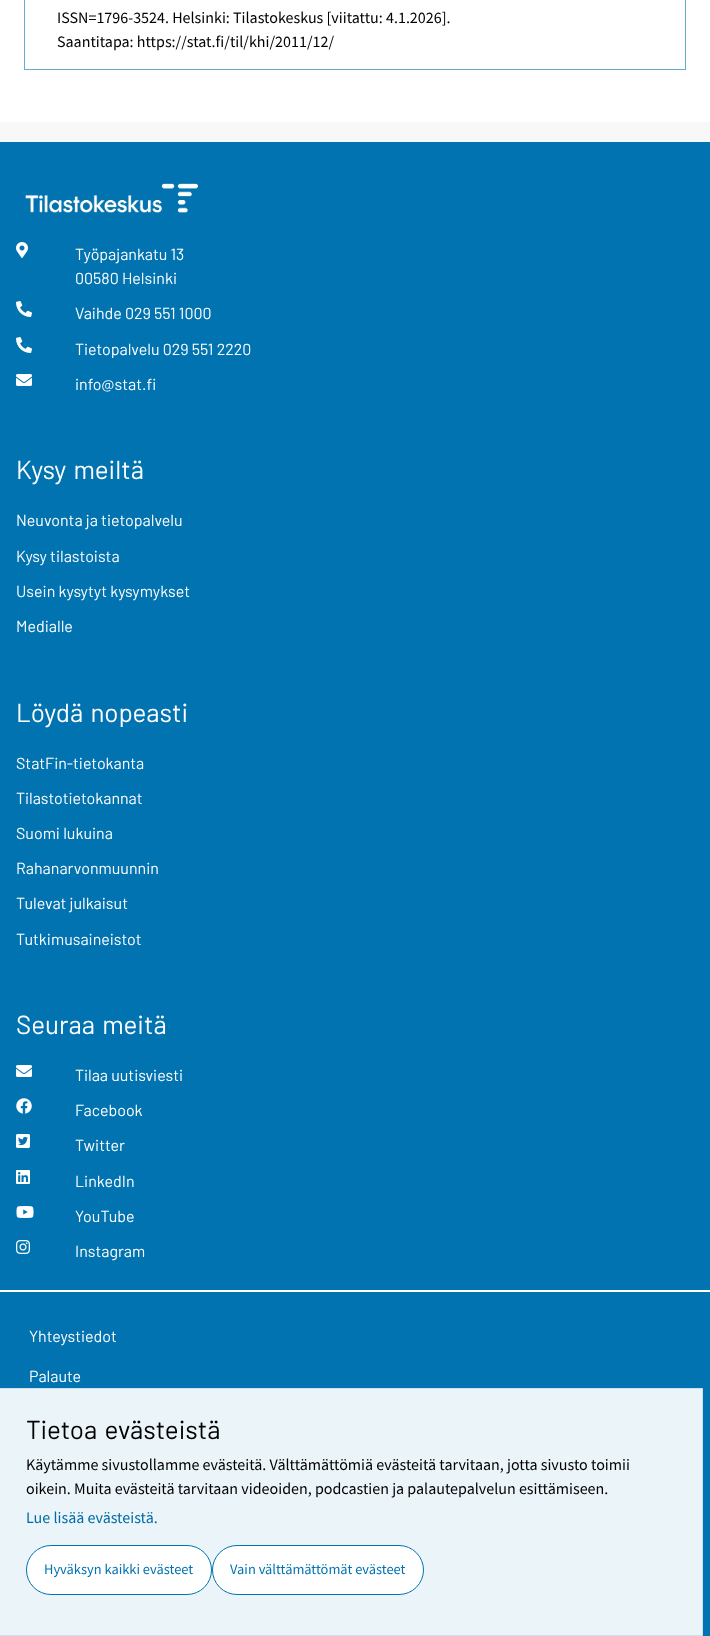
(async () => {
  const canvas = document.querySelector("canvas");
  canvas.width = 710;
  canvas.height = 1636;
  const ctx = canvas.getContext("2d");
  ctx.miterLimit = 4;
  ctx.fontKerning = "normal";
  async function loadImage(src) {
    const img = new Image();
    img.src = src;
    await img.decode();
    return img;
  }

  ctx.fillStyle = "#f8f8f8";
  ctx.fillRect(0, 0, 710, 1636);
  ctx.fillStyle = "#ffffff";
  ctx.fillRect(0, 0, 710, 122);
  ctx.strokeStyle = "#66abd0";
  ctx.strokeRect(24.5, -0.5, 661, 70);
  ctx.fillStyle = "#0073b0";
  ctx.fillRect(0, 142, 710, 1494);
  ctx.drawImage(await loadImage("img/1.png"), 25, 183, 174, 30);
  ctx.drawImage(await loadImage("img/2.png"), 16, 242, 12, 16);
  ctx.drawImage(await loadImage("img/3.png"), 16, 301, 16, 16);
  ctx.drawImage(await loadImage("img/3.png"), 16, 337, 16, 16);
  ctx.drawImage(await loadImage("img/4.png"), 16, 374, 16, 12);
  ctx.drawImage(await loadImage("img/4.png"), 16, 1065, 16, 12);
  ctx.drawImage(await loadImage("img/5.png"), 16, 1098, 16, 16);
  ctx.drawImage(await loadImage("img/6.png"), 16, 1134, 14, 14);
  ctx.drawImage(await loadImage("img/7.png"), 16, 1170, 14, 14);
  ctx.drawImage(await loadImage("img/8.png"), 16, 1206, 18, 12);
  ctx.drawImage(await loadImage("img/9.png"), 16, 1240, 14, 14);
  ctx.fillStyle = "#ffffff";
  ctx.fillRect(0, 1290, 710, 2);
  ctx.fillStyle = "#ebf4f9";
  ctx.beginPath();
  ctx.rect(-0.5, 1388.5, 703, 247);
  ctx.fill();
  ctx.strokeStyle = "#cce3ef";
  ctx.stroke();
  ctx.fillStyle = "#ffffff";
  ctx.beginPath();
  ctx.roundRect(26.5, 1545.5, 185, 49, 24.5);
  ctx.fill();
  ctx.strokeStyle = "#0073b0";
  ctx.stroke();
  ctx.beginPath();
  ctx.roundRect(212.5, 1545.5, 211, 49, 24.5);
  ctx.fill();
  ctx.stroke();
  ctx.font = "16px Source Sans Pro";
  ctx.fillStyle = "#000000";
  ctx.fillText("ISSN=1796-3524. Helsinki: Tilastokeskus [viitattu: 4.1.2026].", 57, 23);
  ctx.fillText("Saantitapa: https://stat.fi/til/khi/2011/12/", 57, 47);
  ctx.font = "16px Barlow";
  ctx.fillStyle = "#ffffff";
  for (const [text, x, y] of [
    ["Työpajankatu 13", 75, 260],
    ["00580 Helsinki", 75, 284],
    ["Vaihde 029 551 1000", 75, 319],
    ["Tietopalvelu 029 551 2220", 75, 355],
    ["info@stat.fi", 75, 390],
  ]) {
    ctx.fillText(text, x, y);
  }
  ctx.wordSpacing = "2px";
  ctx.font = "26px Barlow";
  ctx.fillText("Kysy meiltä", 16, 479);
  ctx.wordSpacing = "0px";
  ctx.font = "16px Barlow";
  for (const [text, x, y] of [
    ["Neuvonta ja tietopalvelu", 16, 526],
    ["Kysy tilastoista", 16, 562],
    ["Usein kysytyt kysymykset", 16, 597],
    ["Medialle", 16, 632],
  ]) {
    ctx.fillText(text, x, y);
  }
  ctx.wordSpacing = "2px";
  ctx.font = "26px Barlow";
  ctx.fillText("Löydä nopeasti", 16, 722);
  ctx.wordSpacing = "0px";
  ctx.font = "16px Barlow";
  for (const [text, x, y] of [
    ["StatFin-tietokanta", 16, 769],
    ["Tilastotietokannat", 16, 804],
    ["Suomi lukuina", 16, 839],
    ["Rahanarvonmuunnin", 16, 874],
    ["Tulevat julkaisut", 16, 909],
    ["Tutkimusaineistot", 16, 945],
  ]) {
    ctx.fillText(text, x, y);
  }
  ctx.wordSpacing = "2px";
  ctx.font = "26px Barlow";
  ctx.fillText("Seuraa meitä", 16, 1034);
  ctx.wordSpacing = "0px";
  ctx.font = "16px Barlow";
  for (const [text, x, y] of [
    ["Tilaa uutisviesti", 75, 1081],
    ["Facebook", 75, 1116],
    ["Twitter", 75, 1151],
    ["LinkedIn", 75, 1187],
    ["YouTube", 75, 1222],
    ["Instagram", 75, 1257],
    ["Yhteystiedot", 29, 1342],
    ["Palaute", 29, 1382],
  ]) {
    ctx.fillText(text, x, y);
  }
  ctx.wordSpacing = "2px";
  ctx.font = "26px Barlow";
  ctx.fillStyle = "#000000";
  ctx.fillText("Tietoa evästeistä", 26, 1439);
  ctx.wordSpacing = "0px";
  ctx.font = "16px Source Sans Pro";
  ctx.fillText("Käytämme sivustollamme evästeitä. Välttämättömiä evästeitä tarvitaan, jotta sivusto toimii", 26, 1470);
  ctx.fillText("oikein. Muita evästeitä tarvitaan videoiden, podcastien ja palautepalvelun esittämiseen.", 26, 1494);
  ctx.fillStyle = "#006ca5";
  ctx.fillText("Lue lisää evästeistä.", 26, 1523);
  ctx.font = "14.4px Source Sans Pro";
  ctx.fillStyle = "#0073b0";
  ctx.fillText("Hyväksyn kaikki evästeet", 44, 1574);
  ctx.fillText("Vain välttämättömät evästeet", 230, 1574);
})();
